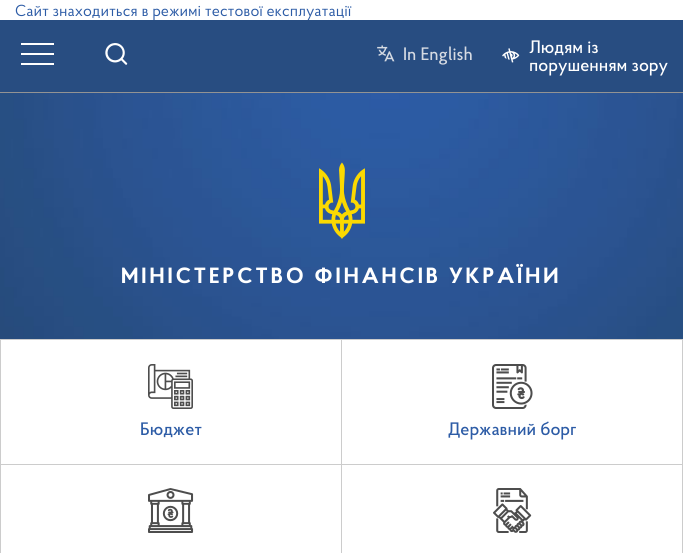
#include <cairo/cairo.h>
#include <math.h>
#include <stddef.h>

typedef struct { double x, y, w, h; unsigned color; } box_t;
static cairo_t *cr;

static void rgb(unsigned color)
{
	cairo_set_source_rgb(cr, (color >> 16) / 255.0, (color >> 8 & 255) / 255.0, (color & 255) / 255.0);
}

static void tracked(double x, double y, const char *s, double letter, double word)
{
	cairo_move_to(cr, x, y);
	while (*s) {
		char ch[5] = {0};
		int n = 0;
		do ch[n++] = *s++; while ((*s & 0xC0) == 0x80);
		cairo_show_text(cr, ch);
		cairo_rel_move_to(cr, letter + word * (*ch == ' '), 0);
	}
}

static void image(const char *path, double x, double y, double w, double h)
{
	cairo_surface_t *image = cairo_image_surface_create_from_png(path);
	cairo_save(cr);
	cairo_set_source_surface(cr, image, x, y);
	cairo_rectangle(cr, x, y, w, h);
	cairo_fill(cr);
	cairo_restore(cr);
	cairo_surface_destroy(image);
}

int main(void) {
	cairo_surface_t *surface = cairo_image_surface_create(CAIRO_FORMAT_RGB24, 683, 553);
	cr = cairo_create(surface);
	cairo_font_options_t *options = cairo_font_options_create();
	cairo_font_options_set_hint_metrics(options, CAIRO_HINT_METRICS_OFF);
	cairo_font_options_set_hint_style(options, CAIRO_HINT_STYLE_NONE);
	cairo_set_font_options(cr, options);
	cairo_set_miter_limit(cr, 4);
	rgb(0xffffff);
	cairo_paint(cr);
	image("img/1.png", 0, 93, 683, 246);
	{
		static const box_t items[] = {
			{0, 20, 683, 72, 0x284d81},
			{0, 92, 683, 1, 0x939393},
			{21, 53, 33, 2, 0xffffff},
			{21, 43, 33, 2, 0xffffff},
			{21, 63, 33, 2, 0xffffff},
		};
		for (size_t i = 0; i < sizeof items / sizeof *items; i++) {
			rgb(items[i].color);
			cairo_rectangle(cr, items[i].x, items[i].y, items[i].w, items[i].h);
			cairo_fill(cr);
		}
	}
	image("img/2.png", 105, 43, 23, 22);
	image("img/3.png", 377, 45, 18, 17);
	image("img/4.png", 502, 48, 18, 15);
	image("img/5.png", 319, 162, 46, 77);
	{
		static const box_t items[] = {
			{0, 339, 683, 1, 0xcccccc},
			{682, 339, 1, 214, 0xcccccc},
			{0, 464, 682, 1, 0xcccccc},
			{0, 340, 1, 213, 0xcccccc},
		};
		for (size_t i = 0; i < sizeof items / sizeof *items; i++) {
			rgb(items[i].color);
			cairo_rectangle(cr, items[i].x, items[i].y, items[i].w, items[i].h);
			cairo_fill(cr);
		}
	}
	image("img/6.png", 148, 364, 45, 45);
	cairo_rectangle(cr, 341, 340, 1, 213);
	cairo_fill(cr);
	image("img/7.png", 492, 364, 41, 45);
	image("img/8.png", 148, 488, 46, 45);
	image("img/9.png", 493, 488, 39, 45);
	cairo_select_font_face(cr, "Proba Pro", CAIRO_FONT_SLANT_NORMAL, CAIRO_FONT_WEIGHT_NORMAL);
	cairo_set_font_size(cr, 16);
	rgb(0x2d5ca6);
	cairo_move_to(cr, 15, 16);
	cairo_show_text(cr, "Сайт знаходиться в режимі тестової експлуатації");
	cairo_select_font_face(cr, "Proba Pro Medium", CAIRO_FONT_SLANT_NORMAL, CAIRO_FONT_WEIGHT_NORMAL);
	cairo_set_font_size(cr, 18);
	rgb(0xd5dae2);
	cairo_move_to(cr, 403, 60);
	cairo_show_text(cr, "In English");
	rgb(0xffffff);
	cairo_move_to(cr, 529, 53);
	cairo_show_text(cr, "Людям із");
	cairo_move_to(cr, 529, 71);
	cairo_show_text(cr, "порушенням зору");
	cairo_select_font_face(cr, "Proba Pro", CAIRO_FONT_SLANT_NORMAL, CAIRO_FONT_WEIGHT_BOLD);
	cairo_set_font_size(cr, 22);
	tracked(121, 283, "МІНІСТЕРСТВО ФІНАНСІВ УКРАЇНИ", 3, 0);
	cairo_select_font_face(cr, "Proba Pro Medium", CAIRO_FONT_SLANT_NORMAL, CAIRO_FONT_WEIGHT_NORMAL);
	cairo_set_font_size(cr, 18);
	rgb(0x2d5ca6);
	cairo_move_to(cr, 140, 435);
	cairo_show_text(cr, "Бюджет");
	cairo_move_to(cr, 448, 435);
	cairo_show_text(cr, "Державний борг");
	cairo_surface_write_to_png(surface, "page.png");
	cairo_font_options_destroy(options);
	cairo_destroy(cr);
	cairo_surface_destroy(surface);
	return 0;
}
